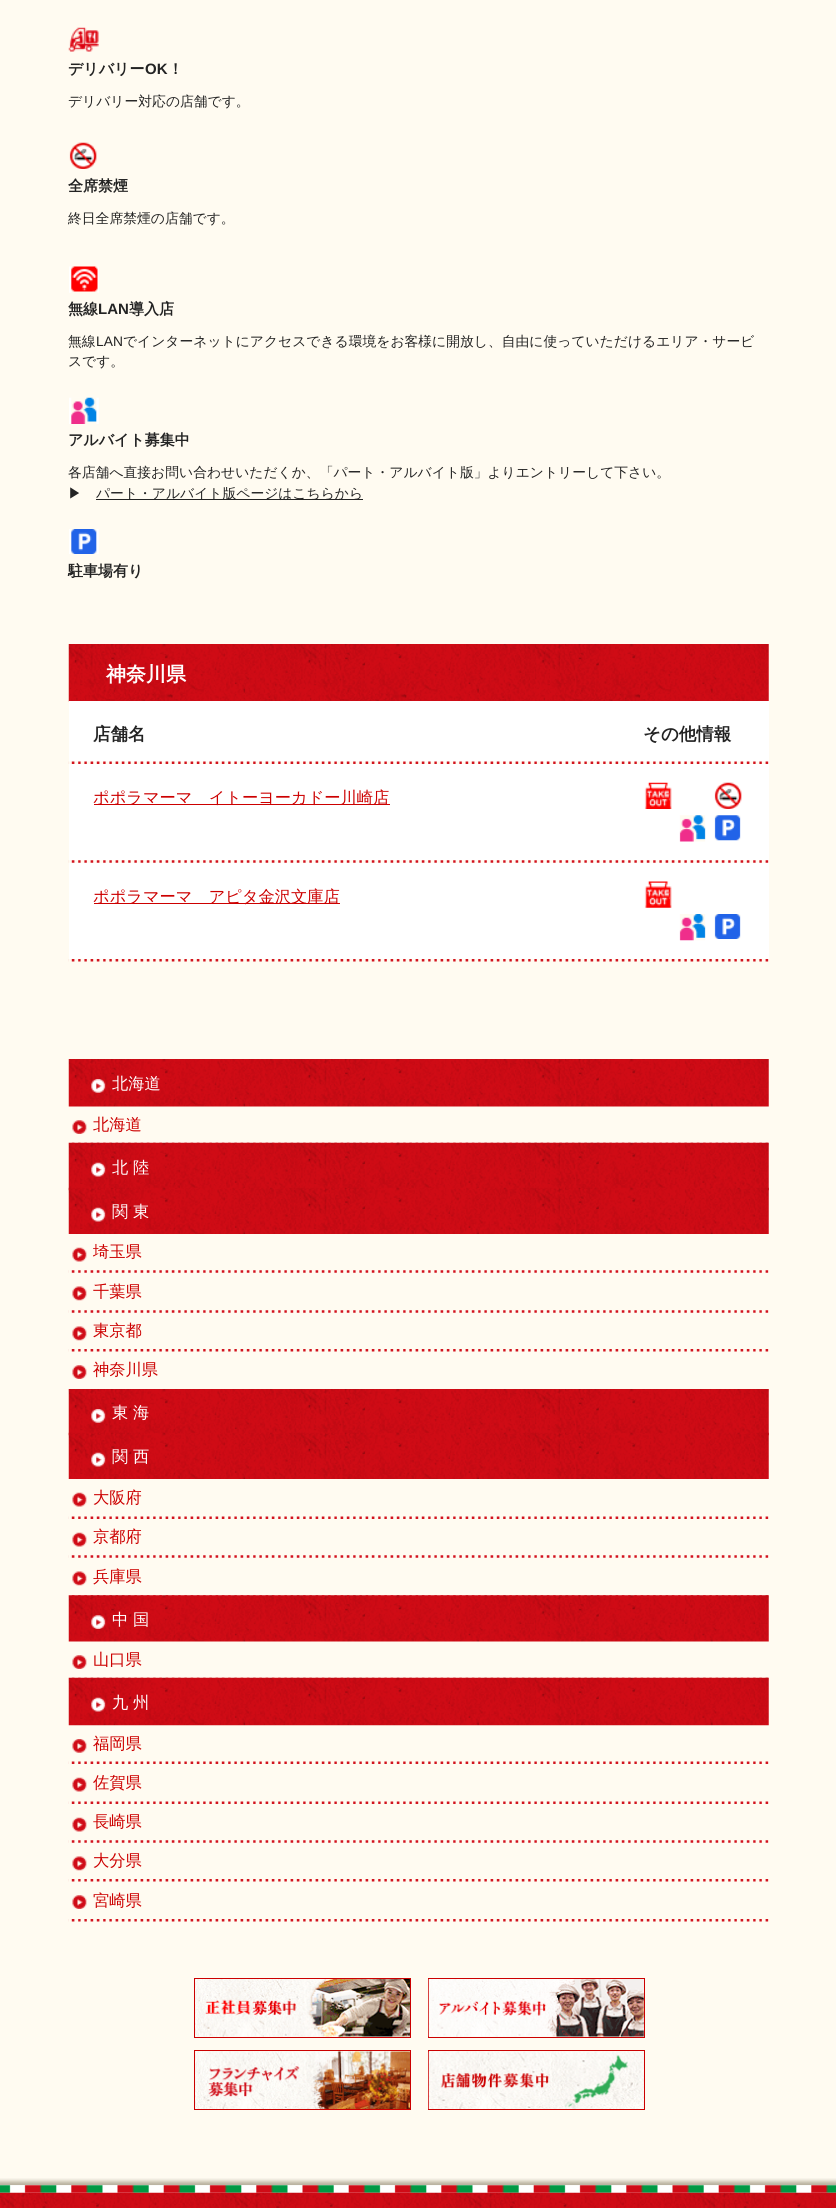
#include <cairo/cairo.h>
#include <math.h>
#include <stddef.h>

typedef struct { double x, y; const char *s; } line_t;
static cairo_t *cr;

static void rgb(unsigned color)
{
	cairo_set_source_rgb(cr, (color >> 16) / 255.0, (color >> 8 & 255) / 255.0, (color & 255) / 255.0);
}

static void image(const char *path, double x, double y, double w, double h)
{
	cairo_surface_t *image = cairo_image_surface_create_from_png(path);
	cairo_save(cr);
	cairo_set_source_surface(cr, image, x, y);
	cairo_rectangle(cr, x, y, w, h);
	cairo_fill(cr);
	cairo_restore(cr);
	cairo_surface_destroy(image);
}

int main(void) {
	cairo_surface_t *surface = cairo_image_surface_create(CAIRO_FORMAT_RGB24, 836, 2208);
	cr = cairo_create(surface);
	cairo_font_options_t *options = cairo_font_options_create();
	cairo_font_options_set_hint_metrics(options, CAIRO_HINT_METRICS_OFF);
	cairo_font_options_set_hint_style(options, CAIRO_HINT_STYLE_NONE);
	cairo_set_font_options(cr, options);
	cairo_set_miter_limit(cr, 4);
	rgb(0xffffff);
	cairo_paint(cr);
	rgb(0xfffbf1);
	cairo_rectangle(cr, 0, 0, 836, 2185);
	cairo_fill(cr);
	image("img/1.png", 0, 2178, 836, 8);
	image("img/2.png", 68, 27, 31, 25);
	image("img/3.png", 69, 142, 28, 27);
	image("img/4.png", 69, 266, 30, 27);
	image("img/5.png", 69, 397, 30, 27);
	rgb(0x232323);
	cairo_rectangle(cr, 96, 499, 267, 1);
	cairo_fill(cr);
	image("img/6.png", 69, 529, 30, 25);
	image("img/7.png", 68, 644, 701, 58);
	rgb(0xffffff);
	cairo_rectangle(cr, 69, 701, 700, 260);
	cairo_fill(cr);
	image("img/8.png", 68, 761, 551, 3);
	image("img/9.png", 618, 761, 151, 3);
	image("img/10.png", 68, 860, 551, 3);
	rgb(0xcc0000);
	cairo_rectangle(cr, 94, 804, 296, 1);
	cairo_fill(cr);
	image("img/11.png", 618, 860, 151, 3);
	image("img/12.png", 644, 782, 28, 27);
	image("img/13.png", 714, 782, 28, 27);
	image("img/14.png", 679, 815, 27, 27);
	image("img/15.png", 714, 815, 27, 26);
	image("img/16.png", 68, 959, 551, 3);
	cairo_rectangle(cr, 94, 903, 246, 1);
	cairo_fill(cr);
	image("img/17.png", 619, 959, 150, 3);
	image("img/18.png", 644, 881, 28, 27);
	image("img/19.png", 679, 914, 27, 27);
	image("img/20.png", 714, 914, 27, 25);
	image("img/21.png", 68, 1059, 701, 48);
	image("img/22.png", 91, 1079, 15, 14);
	image("img/23.png", 68, 1142, 701, 4);
	image("img/24.png", 72, 1120, 15, 14);
	image("img/25.png", 68, 1142, 701, 49);
	image("img/26.png", 91, 1162, 15, 15);
	image("img/27.png", 68, 1187, 701, 47);
	image("img/28.png", 91, 1207, 15, 15);
	image("img/29.png", 68, 1270, 701, 3);
	image("img/30.png", 72, 1247, 15, 15);
	image("img/29.png", 68, 1310, 701, 3);
	image("img/31.png", 72, 1286, 15, 15);
	image("img/32.png", 68, 1349, 701, 3);
	image("img/31.png", 72, 1326, 15, 15);
	image("img/32.png", 68, 1389, 701, 3);
	image("img/24.png", 72, 1365, 15, 14);
	image("img/33.png", 68, 1389, 701, 47);
	image("img/34.png", 91, 1409, 15, 14);
	image("img/35.png", 68, 1432, 701, 47);
	image("img/36.png", 91, 1452, 15, 15);
	image("img/37.png", 68, 1516, 701, 3);
	image("img/30.png", 72, 1492, 15, 15);
	image("img/29.png", 68, 1555, 701, 3);
	image("img/30.png", 72, 1532, 15, 15);
	image("img/29.png", 68, 1595, 701, 3);
	image("img/31.png", 72, 1571, 15, 15);
	image("img/38.png", 68, 1595, 701, 47);
	image("img/39.png", 91, 1615, 15, 14);
	image("img/23.png", 68, 1677, 701, 4);
	image("img/24.png", 72, 1655, 15, 14);
	image("img/40.png", 68, 1677, 701, 49);
	image("img/28.png", 91, 1697, 15, 15);
	image("img/37.png", 68, 1761, 701, 3);
	image("img/41.png", 72, 1739, 15, 14);
	image("img/37.png", 68, 1801, 701, 3);
	image("img/30.png", 72, 1777, 15, 15);
	image("img/29.png", 68, 1840, 701, 3);
	image("img/30.png", 72, 1817, 15, 15);
	image("img/32.png", 68, 1879, 701, 3);
	image("img/31.png", 72, 1856, 15, 15);
	image("img/32.png", 68, 1919, 701, 3);
	image("img/24.png", 72, 1895, 15, 14);
	cairo_rectangle(cr, 194.5, 1978.5, 216, 59);
	cairo_set_line_width(cr, 1);
	cairo_stroke(cr);
	image("img/42.png", 195, 1979, 215, 58);
	cairo_rectangle(cr, 428.5, 1978.5, 216, 59);
	cairo_stroke(cr);
	image("img/43.png", 428, 1979, 216, 58);
	cairo_rectangle(cr, 194.5, 2050.5, 216, 59);
	cairo_stroke(cr);
	image("img/44.png", 195, 2051, 215, 58);
	cairo_rectangle(cr, 428.5, 2050.5, 216, 59);
	cairo_stroke(cr);
	image("img/45.png", 428, 2051, 216, 58);
	image("img/46.png", 0, 2185, 836, 8);
	image("img/47.png", 0, 2192, 836, 16);
	cairo_select_font_face(cr, "WenQuanYi Zen Hei", CAIRO_FONT_SLANT_NORMAL, CAIRO_FONT_WEIGHT_BOLD);
	cairo_set_font_size(cr, 15);
	rgb(0x232323);
	cairo_move_to(cr, 68, 74);
	cairo_show_text(cr, "デリバリー");
	cairo_select_font_face(cr, "Liberation Sans", CAIRO_FONT_SLANT_NORMAL, CAIRO_FONT_WEIGHT_BOLD);
	cairo_move_to(cr, 145, 74);
	cairo_show_text(cr, "OK");
	cairo_select_font_face(cr, "WenQuanYi Zen Hei", CAIRO_FONT_SLANT_NORMAL, CAIRO_FONT_WEIGHT_BOLD);
	cairo_move_to(cr, 168, 74);
	cairo_show_text(cr, "！");
	cairo_select_font_face(cr, "WenQuanYi Zen Hei Medium", CAIRO_FONT_SLANT_NORMAL, CAIRO_FONT_WEIGHT_NORMAL);
	cairo_set_font_size(cr, 13.8);
	cairo_move_to(cr, 68, 106);
	cairo_show_text(cr, "デリバリー対応の店舗です。");
	cairo_select_font_face(cr, "WenQuanYi Zen Hei", CAIRO_FONT_SLANT_NORMAL, CAIRO_FONT_WEIGHT_BOLD);
	cairo_set_font_size(cr, 15);
	cairo_move_to(cr, 68, 191);
	cairo_show_text(cr, "全席禁煙");
	cairo_select_font_face(cr, "WenQuanYi Zen Hei Medium", CAIRO_FONT_SLANT_NORMAL, CAIRO_FONT_WEIGHT_NORMAL);
	cairo_set_font_size(cr, 13.8);
	cairo_move_to(cr, 68, 223);
	cairo_show_text(cr, "終日全席禁煙の店舗です。");
	cairo_select_font_face(cr, "WenQuanYi Zen Hei", CAIRO_FONT_SLANT_NORMAL, CAIRO_FONT_WEIGHT_BOLD);
	cairo_set_font_size(cr, 15);
	cairo_move_to(cr, 68, 314);
	cairo_show_text(cr, "無線");
	cairo_select_font_face(cr, "Liberation Sans", CAIRO_FONT_SLANT_NORMAL, CAIRO_FONT_WEIGHT_BOLD);
	cairo_move_to(cr, 98, 314);
	cairo_show_text(cr, "LAN");
	cairo_select_font_face(cr, "WenQuanYi Zen Hei", CAIRO_FONT_SLANT_NORMAL, CAIRO_FONT_WEIGHT_BOLD);
	cairo_move_to(cr, 129, 314);
	cairo_show_text(cr, "導入店");
	cairo_select_font_face(cr, "WenQuanYi Zen Hei Medium", CAIRO_FONT_SLANT_NORMAL, CAIRO_FONT_WEIGHT_NORMAL);
	cairo_set_font_size(cr, 13.8);
	cairo_move_to(cr, 68, 346);
	cairo_show_text(cr, "無線");
	cairo_select_font_face(cr, "Liberation Sans", CAIRO_FONT_SLANT_NORMAL, CAIRO_FONT_WEIGHT_NORMAL);
	cairo_move_to(cr, 96, 346);
	cairo_show_text(cr, "LAN");
	cairo_select_font_face(cr, "WenQuanYi Zen Hei Medium", CAIRO_FONT_SLANT_NORMAL, CAIRO_FONT_WEIGHT_NORMAL);
	cairo_move_to(cr, 123, 346);
	cairo_show_text(cr, "でインターネットにアクセスできる環境をお客様に開放し、自由に使っていただけるエリア・サービ");
	cairo_move_to(cr, 68, 366);
	cairo_show_text(cr, "スです。");
	cairo_select_font_face(cr, "WenQuanYi Zen Hei", CAIRO_FONT_SLANT_NORMAL, CAIRO_FONT_WEIGHT_BOLD);
	cairo_set_font_size(cr, 15);
	cairo_move_to(cr, 68, 445);
	cairo_show_text(cr, "アルバイト募集中");
	cairo_select_font_face(cr, "WenQuanYi Zen Hei Medium", CAIRO_FONT_SLANT_NORMAL, CAIRO_FONT_WEIGHT_NORMAL);
	cairo_set_font_size(cr, 13.8);
	{
		static const line_t items[] = {
			{68, 477, "各店舗へ直接お問い合わせいただくか、「パート・アルバイト版」よりエントリーして下さい。"},
			{68, 498, "▶"},
			{96, 498, "パート・アルバイト版ページはこちらから"},
		};
		for (size_t i = 0; i < sizeof items / sizeof *items; i++) {
			cairo_move_to(cr, items[i].x, items[i].y);
			cairo_show_text(cr, items[i].s);
		}
	}
	cairo_select_font_face(cr, "WenQuanYi Zen Hei", CAIRO_FONT_SLANT_NORMAL, CAIRO_FONT_WEIGHT_BOLD);
	cairo_set_font_size(cr, 15);
	cairo_move_to(cr, 68, 576);
	cairo_show_text(cr, "駐車場有り");
	cairo_set_font_size(cr, 20);
	rgb(0xffffff);
	cairo_move_to(cr, 106, 681);
	cairo_show_text(cr, "神奈川県");
	cairo_set_font_size(cr, 17.5);
	rgb(0x232323);
	cairo_move_to(cr, 93, 740);
	cairo_show_text(cr, "店舗名");
	cairo_move_to(cr, 643, 740);
	cairo_show_text(cr, "その他情報");
	cairo_select_font_face(cr, "WenQuanYi Zen Hei Medium", CAIRO_FONT_SLANT_NORMAL, CAIRO_FONT_WEIGHT_NORMAL);
	cairo_set_font_size(cr, 16.25);
	rgb(0xcc0000);
	cairo_move_to(cr, 93, 803);
	cairo_show_text(cr, "ポポラマーマ　イトーヨーカドー川崎店");
	cairo_move_to(cr, 93, 902);
	cairo_show_text(cr, "ポポラマーマ　アピタ金沢文庫店");
	rgb(0xffffff);
	cairo_move_to(cr, 112, 1089);
	cairo_show_text(cr, "北海道");
	rgb(0xcc0000);
	cairo_move_to(cr, 93, 1130);
	cairo_show_text(cr, "北海道");
	rgb(0xffffff);
	cairo_move_to(cr, 112, 1173);
	cairo_show_text(cr, "北 陸");
	cairo_move_to(cr, 112, 1217);
	cairo_show_text(cr, "関 東");
	rgb(0xcc0000);
	{
		static const line_t items[] = {
			{93, 1257, "埼玉県"},
			{93, 1297, "千葉県"},
			{93, 1336, "東京都"},
			{93, 1375, "神奈川県"},
		};
		for (size_t i = 0; i < sizeof items / sizeof *items; i++) {
			cairo_move_to(cr, items[i].x, items[i].y);
			cairo_show_text(cr, items[i].s);
		}
	}
	rgb(0xffffff);
	cairo_move_to(cr, 112, 1418);
	cairo_show_text(cr, "東 海");
	cairo_move_to(cr, 112, 1462);
	cairo_show_text(cr, "関 西");
	rgb(0xcc0000);
	{
		static const line_t items[] = {
			{93, 1503, "大阪府"},
			{93, 1542, "京都府"},
			{93, 1582, "兵庫県"},
		};
		for (size_t i = 0; i < sizeof items / sizeof *items; i++) {
			cairo_move_to(cr, items[i].x, items[i].y);
			cairo_show_text(cr, items[i].s);
		}
	}
	rgb(0xffffff);
	cairo_move_to(cr, 112, 1625);
	cairo_show_text(cr, "中 国");
	rgb(0xcc0000);
	cairo_move_to(cr, 93, 1665);
	cairo_show_text(cr, "山口県");
	rgb(0xffffff);
	cairo_move_to(cr, 112, 1708);
	cairo_show_text(cr, "九 州");
	rgb(0xcc0000);
	{
		static const line_t items[] = {
			{93, 1749, "福岡県"},
			{93, 1788, "佐賀県"},
			{93, 1827, "長崎県"},
			{93, 1866, "大分県"},
			{93, 1906, "宮崎県"},
		};
		for (size_t i = 0; i < sizeof items / sizeof *items; i++) {
			cairo_move_to(cr, items[i].x, items[i].y);
			cairo_show_text(cr, items[i].s);
		}
	}
	cairo_surface_write_to_png(surface, "page.png");
	cairo_font_options_destroy(options);
	cairo_destroy(cr);
	cairo_surface_destroy(surface);
	return 0;
}
